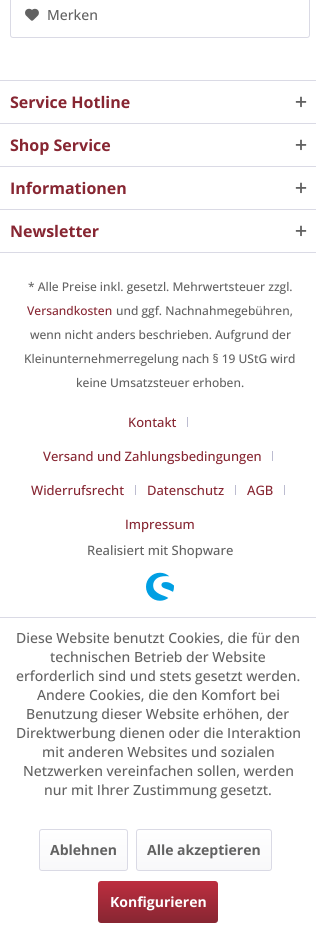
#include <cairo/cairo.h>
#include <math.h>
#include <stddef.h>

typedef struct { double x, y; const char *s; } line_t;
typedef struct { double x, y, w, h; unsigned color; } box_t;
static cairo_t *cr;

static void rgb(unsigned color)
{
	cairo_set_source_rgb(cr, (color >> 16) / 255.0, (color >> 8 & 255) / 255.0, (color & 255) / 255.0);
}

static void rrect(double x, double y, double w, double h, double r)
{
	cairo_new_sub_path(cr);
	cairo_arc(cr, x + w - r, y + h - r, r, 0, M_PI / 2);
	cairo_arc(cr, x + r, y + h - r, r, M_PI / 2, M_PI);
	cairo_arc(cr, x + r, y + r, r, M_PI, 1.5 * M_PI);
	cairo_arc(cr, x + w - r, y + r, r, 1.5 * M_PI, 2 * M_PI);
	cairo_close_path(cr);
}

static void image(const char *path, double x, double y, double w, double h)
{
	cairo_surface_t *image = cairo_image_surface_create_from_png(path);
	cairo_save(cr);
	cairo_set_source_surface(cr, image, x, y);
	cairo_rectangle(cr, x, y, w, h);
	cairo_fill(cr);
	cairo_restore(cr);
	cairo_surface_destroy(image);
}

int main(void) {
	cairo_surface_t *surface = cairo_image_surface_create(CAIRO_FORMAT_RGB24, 316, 933);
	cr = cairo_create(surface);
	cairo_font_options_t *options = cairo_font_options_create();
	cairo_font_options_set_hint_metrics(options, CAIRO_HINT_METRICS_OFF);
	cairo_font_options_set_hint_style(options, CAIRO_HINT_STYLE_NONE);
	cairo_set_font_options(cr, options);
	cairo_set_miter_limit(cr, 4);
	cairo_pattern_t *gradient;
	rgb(0xffffff);
	cairo_paint(cr);
	rrect(10.5, -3.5, 299, 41, 2.5);
	rgb(0xdadae5);
	cairo_set_line_width(cr, 1);
	cairo_stroke(cr);
	image("img/1.png", 25, 8, 14, 13);
	cairo_rectangle(cr, 0, 80, 316, 1);
	cairo_fill(cr);
	image("img/2.png", 295, 96, 12, 12);
	cairo_rectangle(cr, 0, 123, 316, 1);
	cairo_fill(cr);
	image("img/2.png", 295, 139, 12, 12);
	cairo_rectangle(cr, 0, 166, 316, 1);
	cairo_fill(cr);
	image("img/2.png", 295, 182, 12, 12);
	cairo_rectangle(cr, 0, 209, 316, 1);
	cairo_fill(cr);
	cairo_rectangle(cr, 0, 252, 316, 1);
	cairo_fill(cr);
	image("img/2.png", 295, 225, 12, 12);
	{
		static const box_t items[] = {
			{187, 417, 1, 10, 0xbcbcd0},
			{272, 451, 1, 10, 0xbcbcd0},
			{135, 485, 1, 10, 0xbcbcd0},
			{235, 485, 1, 10, 0xbcbcd0},
			{284, 485, 1, 10, 0xbcbcd0},
		};
		for (size_t i = 0; i < sizeof items / sizeof *items; i++) {
			rgb(items[i].color);
			cairo_rectangle(cr, items[i].x, items[i].y, items[i].w, items[i].h);
			cairo_fill(cr);
		}
	}
	image("img/3.png", 146, 572, 28, 29);
	rgb(0xdadae5);
	cairo_rectangle(cr, 0, 617, 316, 1);
	cairo_fill(cr);
	gradient = cairo_pattern_create_linear(84, 830, 84, 870);
	cairo_pattern_add_color_stop_rgba(gradient, 0, 1, 1, 1, 1);
	cairo_pattern_add_color_stop_rgba(gradient, 1, 0.973, 0.973, 0.98, 1);
	cairo_set_source(cr, gradient);
	cairo_pattern_destroy(gradient);
	rrect(40, 830, 87, 40, 2);
	cairo_fill(cr);
	rrect(39.5, 829.5, 88, 41, 2.5);
	rgb(0xdadae5);
	cairo_stroke(cr);
	gradient = cairo_pattern_create_linear(204, 830, 204, 870);
	cairo_pattern_add_color_stop_rgba(gradient, 0, 1, 1, 1, 1);
	cairo_pattern_add_color_stop_rgba(gradient, 1, 0.973, 0.973, 0.98, 1);
	cairo_set_source(cr, gradient);
	cairo_pattern_destroy(gradient);
	rrect(137, 830, 134, 40, 2);
	cairo_fill(cr);
	rrect(136.5, 829.5, 135, 41, 2.5);
	rgb(0xdadae5);
	cairo_stroke(cr);
	gradient = cairo_pattern_create_linear(158, 881, 158, 923);
	cairo_pattern_add_color_stop_rgba(gradient, 0, 0.741, 0.18, 0.247, 1);
	cairo_pattern_add_color_stop_rgba(gradient, 1, 0.529, 0.149, 0.196, 1);
	cairo_set_source(cr, gradient);
	cairo_pattern_destroy(gradient);
	rrect(98, 881, 120, 42, 3);
	cairo_fill(cr);
	cairo_select_font_face(cr, "Open Sans Medium", CAIRO_FONT_SLANT_NORMAL, CAIRO_FONT_WEIGHT_NORMAL);
	cairo_set_font_size(cr, 14);
	rgb(0x626262);
	cairo_move_to(cr, 47, 20);
	cairo_show_text(cr, "Merken");
	cairo_select_font_face(cr, "Open Sans", CAIRO_FONT_SLANT_NORMAL, CAIRO_FONT_WEIGHT_BOLD);
	cairo_set_font_size(cr, 16);
	rgb(0x872632);
	{
		static const line_t items[] = {
			{10, 108, "Service Hotline"},
			{10, 151, "Shop Service"},
			{10, 194, "Informationen"},
			{10, 237, "Newsletter"},
		};
		for (size_t i = 0; i < sizeof items / sizeof *items; i++) {
			cairo_move_to(cr, items[i].x, items[i].y);
			cairo_show_text(cr, items[i].s);
		}
	}
	cairo_select_font_face(cr, "Open Sans Medium", CAIRO_FONT_SLANT_NORMAL, CAIRO_FONT_WEIGHT_NORMAL);
	cairo_set_font_size(cr, 12);
	rgb(0x626262);
	cairo_move_to(cr, 28, 291);
	cairo_show_text(cr, "* Alle Preise inkl. gesetzl. Mehrwertsteuer zzgl.");
	rgb(0x872632);
	cairo_move_to(cr, 27, 315);
	cairo_show_text(cr, "Versandkosten");
	rgb(0x626262);
	{
		static const line_t items[] = {
			{116, 315, "und ggf. Nachnahmegebühren,"},
			{30, 339, "wenn nicht anders beschrieben. Aufgrund der"},
			{24, 363, "Kleinunternehmerregelung nach § 19 UStG wird"},
			{76, 387, "keine Umsatzsteuer erhoben."},
		};
		for (size_t i = 0; i < sizeof items / sizeof *items; i++) {
			cairo_move_to(cr, items[i].x, items[i].y);
			cairo_show_text(cr, items[i].s);
		}
	}
	cairo_set_font_size(cr, 13);
	rgb(0x872632);
	{
		static const line_t items[] = {
			{128, 427, "Kontakt"},
			{43, 461, "Versand und Zahlungsbedingungen"},
			{31, 495, "Widerrufsrecht"},
			{147, 495, "Datenschutz"},
			{247, 495, "AGB"},
			{125, 529, "Impressum"},
		};
		for (size_t i = 0; i < sizeof items / sizeof *items; i++) {
			cairo_move_to(cr, items[i].x, items[i].y);
			cairo_show_text(cr, items[i].s);
		}
	}
	rgb(0x626262);
	cairo_move_to(cr, 87, 555);
	cairo_show_text(cr, "Realisiert mit Shopware");
	cairo_set_font_size(cr, 14);
	{
		static const line_t items[] = {
			{16, 643, "Diese Website benutzt Cookies, die für den"},
			{50, 662, "technischen Betrieb der Website"},
			{16, 681, "erforderlich sind und stets gesetzt werden."},
			{37, 700, "Andere Cookies, die den Komfort bei"},
			{26, 719, "Benutzung dieser Website erhöhen, der"},
			{16, 738, "Direktwerbung dienen oder die Interaktion"},
			{42, 757, "mit anderen Websites und sozialen"},
			{23, 776, "Netzwerken vereinfachen sollen, werden"},
			{44, 795, "nur mit Ihrer Zustimmung gesetzt."},
		};
		for (size_t i = 0; i < sizeof items / sizeof *items; i++) {
			cairo_move_to(cr, items[i].x, items[i].y);
			cairo_show_text(cr, items[i].s);
		}
	}
	cairo_select_font_face(cr, "Open Sans", CAIRO_FONT_SLANT_NORMAL, CAIRO_FONT_WEIGHT_BOLD);
	cairo_move_to(cr, 50, 855);
	cairo_show_text(cr, "Ablehnen");
	cairo_move_to(cr, 147, 855);
	cairo_show_text(cr, "Alle akzeptieren");
	rgb(0xffffff);
	cairo_move_to(cr, 110, 907);
	cairo_show_text(cr, "Konfigurieren");
	cairo_surface_write_to_png(surface, "page.png");
	cairo_font_options_destroy(options);
	cairo_destroy(cr);
	cairo_surface_destroy(surface);
	return 0;
}
